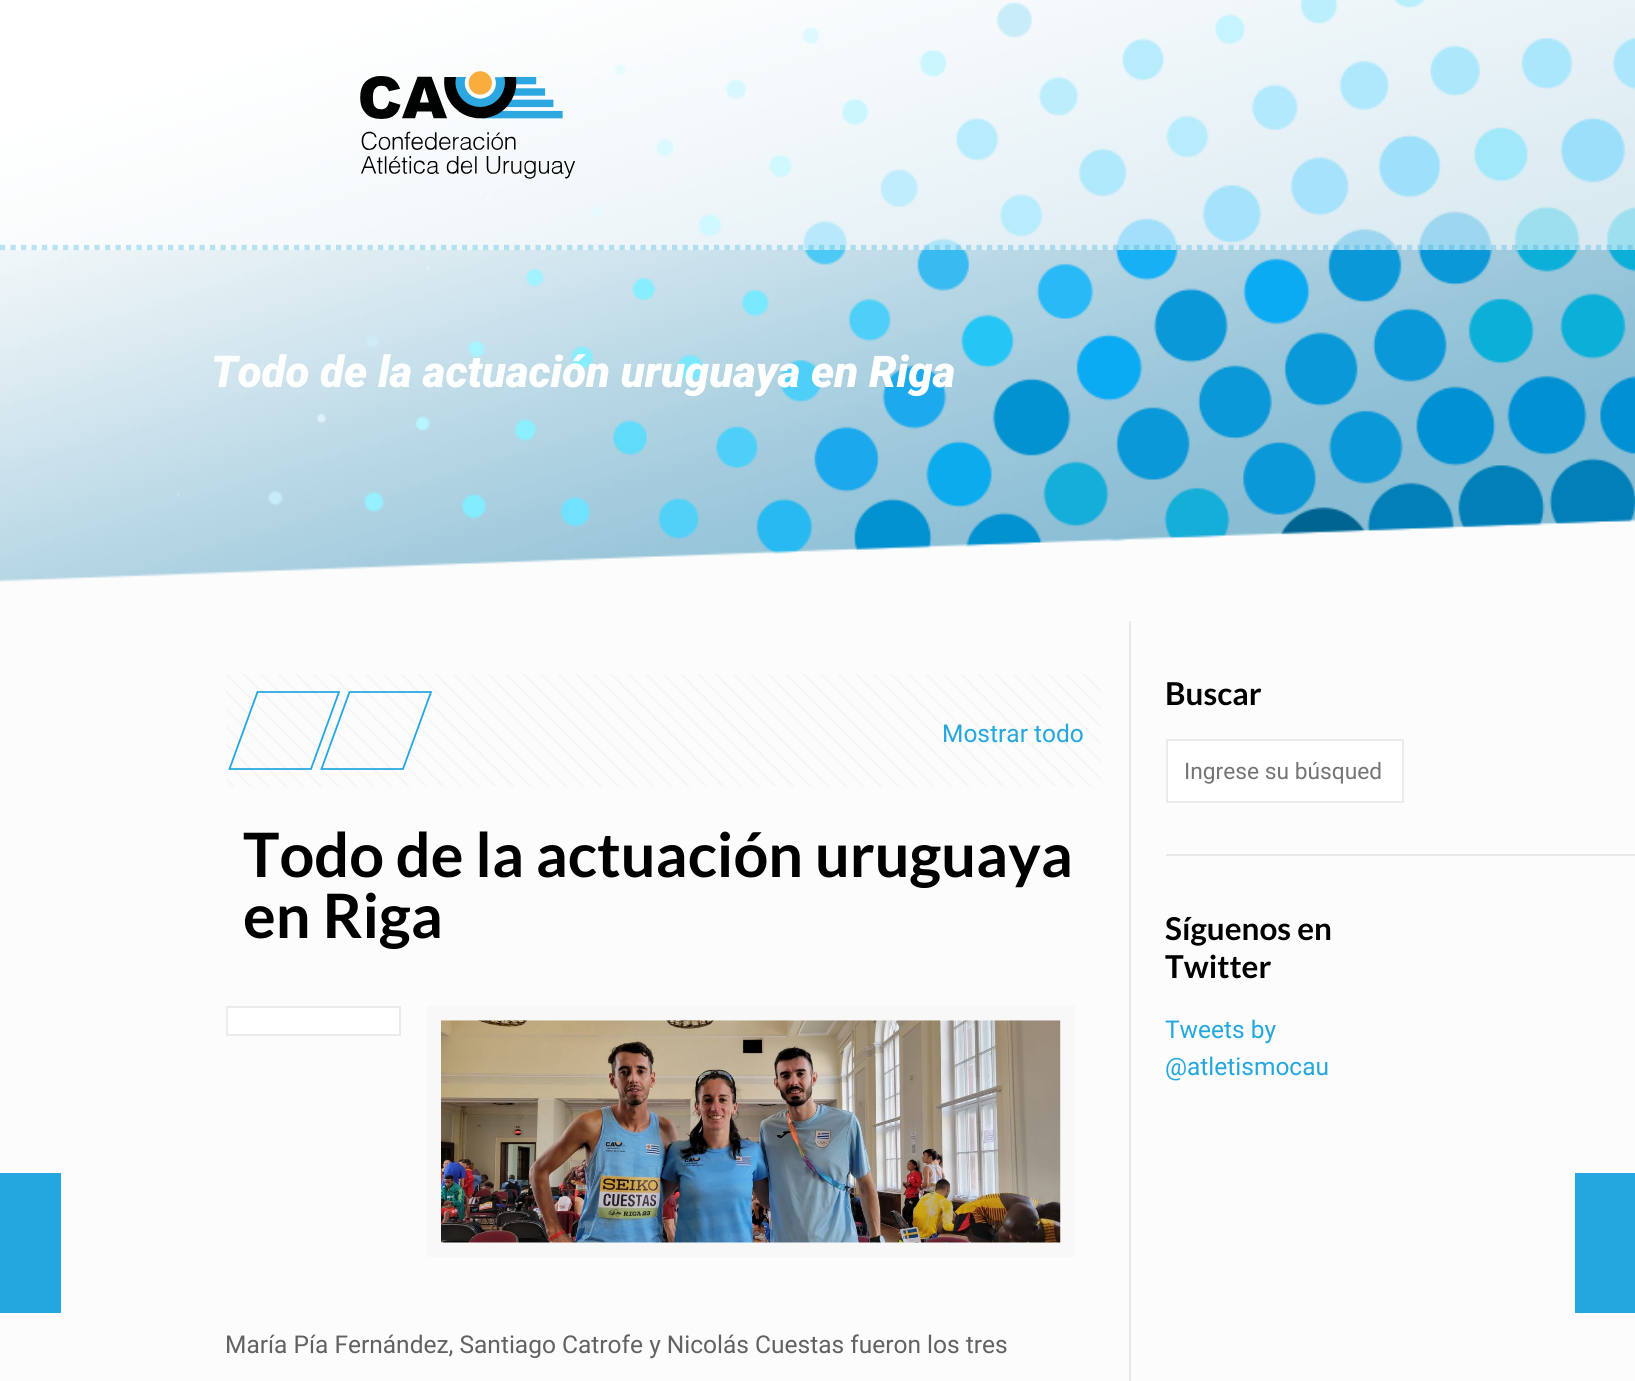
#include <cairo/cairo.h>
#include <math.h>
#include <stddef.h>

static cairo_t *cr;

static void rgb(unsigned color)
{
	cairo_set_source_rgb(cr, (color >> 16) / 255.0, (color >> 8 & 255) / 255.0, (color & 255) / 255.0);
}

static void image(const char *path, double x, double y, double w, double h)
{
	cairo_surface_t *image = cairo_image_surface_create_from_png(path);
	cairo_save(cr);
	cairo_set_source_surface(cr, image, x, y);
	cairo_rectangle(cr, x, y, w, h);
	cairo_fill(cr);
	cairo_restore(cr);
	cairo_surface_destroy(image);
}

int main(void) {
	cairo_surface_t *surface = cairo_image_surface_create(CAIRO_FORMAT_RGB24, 1635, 1381);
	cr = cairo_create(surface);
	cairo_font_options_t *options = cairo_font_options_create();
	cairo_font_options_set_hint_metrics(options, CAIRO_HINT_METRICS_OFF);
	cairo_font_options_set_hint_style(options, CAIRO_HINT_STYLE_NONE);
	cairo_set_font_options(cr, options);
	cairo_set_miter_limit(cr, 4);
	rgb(0xfcfcfc);
	cairo_paint(cr);
	rgb(0x24a7df);
	cairo_rectangle(cr, 0, 1173, 61, 140);
	cairo_fill(cr);
	image("img/1.png", 0, 0, 1635, 582);
	cairo_set_source_rgba(cr, 1, 1, 1, 0.6);
	cairo_rectangle(cr, 0, 0, 1635, 250);
	cairo_fill(cr);
	cairo_new_path(cr);
	cairo_move_to(cr, 0, 247.5);
	cairo_line_to(cr, 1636, 247.5);
	cairo_set_source_rgba(cr, 0.141, 0.655, 0.875, 0.3);
	cairo_set_line_width(cr, 5.2);
	cairo_set_dash(cr, (double[]){5.25, 5.25}, 2, 0);
	cairo_stroke(cr);
	image("img/2.png", 360, 71, 215, 108);
	image("img/3.png", 226, 674, 875, 113);
	cairo_new_path(cr);
	cairo_move_to(cr, 257.5, 692);
	cairo_line_to(cr, 339, 692);
	cairo_line_to(cr, 311, 769);
	cairo_line_to(cr, 229.5, 769);
	cairo_close_path(cr);
	rgb(0x24a7df);
	cairo_set_line_width(cr, 1.8);
	cairo_set_dash(cr, NULL, 0, 0);
	cairo_stroke(cr);
	cairo_new_path(cr);
	cairo_move_to(cr, 349.5, 692);
	cairo_line_to(cr, 431, 692);
	cairo_line_to(cr, 403, 769);
	cairo_line_to(cr, 321.5, 769);
	cairo_close_path(cr);
	cairo_stroke(cr);
	rgb(0xffffff);
	cairo_rectangle(cr, 227, 1007, 173, 28);
	cairo_fill_preserve(cr);
	rgb(0xebebeb);
	cairo_set_line_width(cr, 2);
	cairo_stroke(cr);
	cairo_rectangle(cr, 434, 1013, 634, 237);
	rgb(0xf8f8f8);
	cairo_set_line_width(cr, 14);
	cairo_stroke(cr);
	image("img/4.png", 441, 1020, 620, 223);
	rgb(0xe8e8e8);
	cairo_rectangle(cr, 1129, 621, 2, 760);
	cairo_fill(cr);
	rgb(0xffffff);
	cairo_rectangle(cr, 1167, 740, 236, 62);
	cairo_fill_preserve(cr);
	rgb(0xebebeb);
	cairo_set_line_width(cr, 2);
	cairo_stroke(cr);
	rgb(0xe8e8e8);
	cairo_rectangle(cr, 1166, 854, 469, 2);
	cairo_fill(cr);
	rgb(0x24a7df);
	cairo_rectangle(cr, 1575, 1173, 60, 140);
	cairo_fill(cr);
	cairo_select_font_face(cr, "Roboto Black", CAIRO_FONT_SLANT_ITALIC, CAIRO_FONT_WEIGHT_NORMAL);
	cairo_set_font_size(cr, 43.75);
	rgb(0xffffff);
	cairo_move_to(cr, 211, 387);
	cairo_show_text(cr, "Todo de la actuación uruguaya en Riga");
	cairo_select_font_face(cr, "Roboto", CAIRO_FONT_SLANT_NORMAL, CAIRO_FONT_WEIGHT_NORMAL);
	cairo_set_font_size(cr, 24.5);
	rgb(0x24a7df);
	cairo_move_to(cr, 942, 742);
	cairo_show_text(cr, "Mostrar todo");
	cairo_select_font_face(cr, "Lato", CAIRO_FONT_SLANT_NORMAL, CAIRO_FONT_WEIGHT_BOLD);
	cairo_set_font_size(cr, 61.25);
	rgb(0x000000);
	cairo_move_to(cr, 243, 877);
	cairo_show_text(cr, "Todo de la actuación uruguaya");
	cairo_move_to(cr, 243, 938);
	cairo_show_text(cr, "en Riga");
	cairo_select_font_face(cr, "Roboto", CAIRO_FONT_SLANT_NORMAL, CAIRO_FONT_WEIGHT_NORMAL);
	cairo_set_font_size(cr, 24.5);
	rgb(0x626262);
	cairo_move_to(cr, 225, 1353);
	cairo_show_text(cr, "María Pía Fernández, Santiago Catrofe y Nicolás Cuestas fueron los tres");
	cairo_select_font_face(cr, "Lato", CAIRO_FONT_SLANT_NORMAL, CAIRO_FONT_WEIGHT_BOLD);
	cairo_set_font_size(cr, 31.5);
	rgb(0x000000);
	cairo_move_to(cr, 1165, 705);
	cairo_show_text(cr, "Buscar");
	cairo_select_font_face(cr, "Roboto", CAIRO_FONT_SLANT_NORMAL, CAIRO_FONT_WEIGHT_NORMAL);
	cairo_set_font_size(cr, 22.75);
	rgb(0x757575);
	cairo_move_to(cr, 1184, 779);
	cairo_show_text(cr, "Ingrese su búsqued");
	cairo_select_font_face(cr, "Lato", CAIRO_FONT_SLANT_NORMAL, CAIRO_FONT_WEIGHT_BOLD);
	cairo_set_font_size(cr, 31.5);
	rgb(0x000000);
	cairo_move_to(cr, 1165, 940);
	cairo_show_text(cr, "Síguenos en");
	cairo_move_to(cr, 1165, 978);
	cairo_show_text(cr, "Twitter");
	cairo_select_font_face(cr, "Roboto", CAIRO_FONT_SLANT_NORMAL, CAIRO_FONT_WEIGHT_NORMAL);
	cairo_set_font_size(cr, 24.5);
	rgb(0x24a7df);
	cairo_move_to(cr, 1165, 1038);
	cairo_show_text(cr, "Tweets by");
	cairo_move_to(cr, 1165, 1075);
	cairo_show_text(cr, "@atletismocau");
	cairo_surface_write_to_png(surface, "page.png");
	cairo_font_options_destroy(options);
	cairo_destroy(cr);
	cairo_surface_destroy(surface);
	return 0;
}
